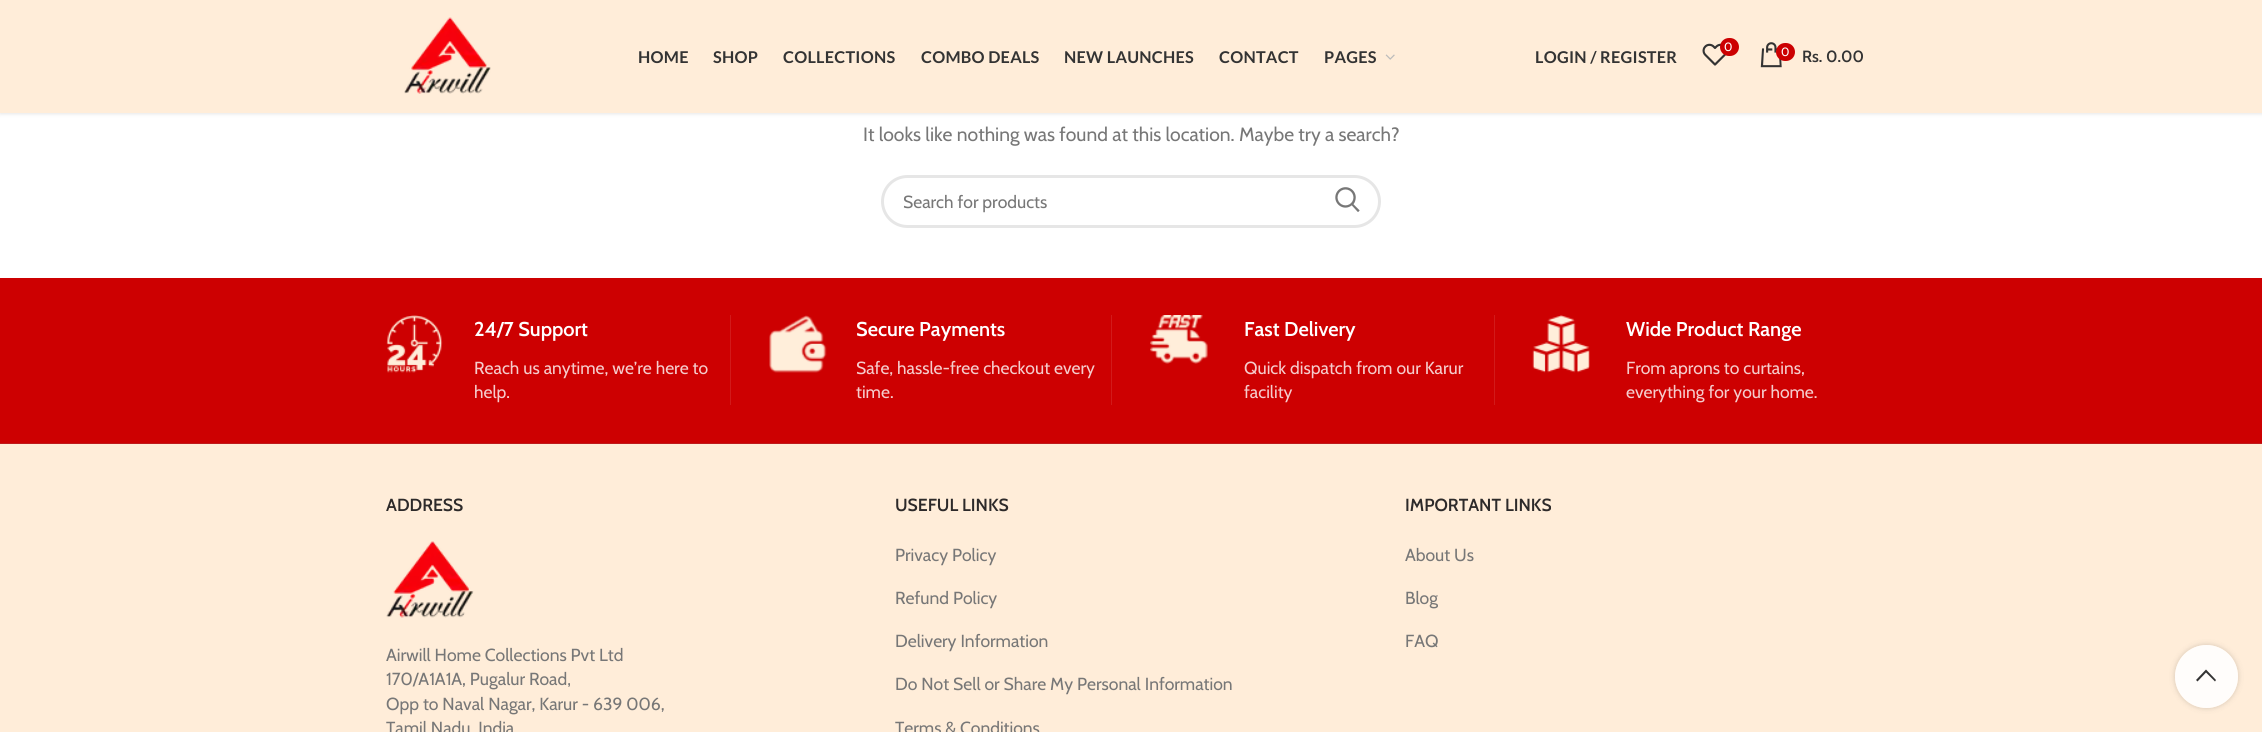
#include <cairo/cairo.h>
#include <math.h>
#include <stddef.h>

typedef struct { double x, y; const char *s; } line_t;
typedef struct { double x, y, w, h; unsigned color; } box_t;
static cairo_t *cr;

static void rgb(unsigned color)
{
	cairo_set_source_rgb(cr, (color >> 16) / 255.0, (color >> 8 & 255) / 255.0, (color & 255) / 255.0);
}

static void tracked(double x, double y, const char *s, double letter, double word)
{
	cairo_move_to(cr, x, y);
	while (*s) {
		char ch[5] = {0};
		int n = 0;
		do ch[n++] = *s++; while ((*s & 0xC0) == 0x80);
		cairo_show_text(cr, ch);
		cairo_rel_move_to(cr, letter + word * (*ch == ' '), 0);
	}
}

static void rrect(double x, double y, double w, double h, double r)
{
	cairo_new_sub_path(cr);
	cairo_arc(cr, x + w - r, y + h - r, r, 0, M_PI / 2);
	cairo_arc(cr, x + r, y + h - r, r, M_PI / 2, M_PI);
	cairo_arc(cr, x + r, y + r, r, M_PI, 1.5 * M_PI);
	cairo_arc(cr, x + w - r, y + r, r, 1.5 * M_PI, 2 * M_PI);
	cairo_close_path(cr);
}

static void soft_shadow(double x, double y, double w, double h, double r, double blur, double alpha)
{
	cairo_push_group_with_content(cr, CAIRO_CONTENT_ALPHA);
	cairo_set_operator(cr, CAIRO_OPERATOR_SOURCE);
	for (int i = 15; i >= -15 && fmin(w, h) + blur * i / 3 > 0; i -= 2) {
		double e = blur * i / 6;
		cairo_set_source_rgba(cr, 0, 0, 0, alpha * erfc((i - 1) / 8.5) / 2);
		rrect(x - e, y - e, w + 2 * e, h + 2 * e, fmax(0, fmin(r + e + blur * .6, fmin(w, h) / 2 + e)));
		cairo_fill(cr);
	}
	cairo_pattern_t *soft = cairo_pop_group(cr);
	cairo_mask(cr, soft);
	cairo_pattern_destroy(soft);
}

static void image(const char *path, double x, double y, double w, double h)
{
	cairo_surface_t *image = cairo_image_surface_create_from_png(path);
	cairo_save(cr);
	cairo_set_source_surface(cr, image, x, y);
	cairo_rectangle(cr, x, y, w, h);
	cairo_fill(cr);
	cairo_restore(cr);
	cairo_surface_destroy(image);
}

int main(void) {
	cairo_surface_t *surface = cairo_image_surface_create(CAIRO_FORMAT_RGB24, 2262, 732);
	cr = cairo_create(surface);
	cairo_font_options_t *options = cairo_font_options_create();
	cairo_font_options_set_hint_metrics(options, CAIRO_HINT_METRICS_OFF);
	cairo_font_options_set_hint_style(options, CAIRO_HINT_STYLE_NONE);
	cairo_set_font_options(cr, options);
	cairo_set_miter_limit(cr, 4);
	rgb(0xffffff);
	cairo_paint(cr);
	rgb(0x000000);
	soft_shadow(0, 1, 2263, 113, 0, 2, 0.1);
	rgb(0xffedd9);
	cairo_rectangle(cr, 0, 0, 2262, 113);
	cairo_fill(cr);
	image("img/1.png", 404, 17, 87, 77);
	image("img/2.png", 1385, 54, 10, 6);
	image("img/3.png", 1702, 43, 24, 23);
	rgb(0xcc0001);
	rrect(1720, 38, 19, 18, 9);
	cairo_fill(cr);
	image("img/4.png", 1760, 42, 22, 26);
	rrect(1776, 43, 19, 18, 9);
	cairo_fill(cr);
	rrect(882.5, 176.5, 497, 50, 25);
	rgb(0xe6e6e6);
	cairo_set_line_width(cr, 3);
	cairo_stroke(cr);
	image("img/5.png", 1335, 187, 25, 25);
	{
		static const box_t items[] = {
			{0, 278, 2262, 165, 0xcd0001},
			{0, 443, 2262, 1, 0xbe1a1b},
			{730, 315, 1, 90, 0xd21a1a},
		};
		for (size_t i = 0; i < sizeof items / sizeof *items; i++) {
			rgb(items[i].color);
			cairo_rectangle(cr, items[i].x, items[i].y, items[i].w, items[i].h);
			cairo_fill(cr);
		}
	}
	image("img/6.png", 386, 315, 57, 58);
	cairo_rectangle(cr, 1111, 315, 1, 90);
	cairo_fill(cr);
	image("img/7.png", 769, 315, 58, 58);
	cairo_rectangle(cr, 1494, 315, 1, 90);
	cairo_fill(cr);
	image("img/8.png", 1150, 315, 58, 49);
	image("img/9.png", 1532, 315, 58, 58);
	rgb(0xffedd9);
	cairo_rectangle(cr, 0, 444, 2262, 288);
	cairo_fill(cr);
	image("img/10.png", 386, 541, 88, 77);
	cairo_save(cr);
	cairo_set_fill_rule(cr, CAIRO_FILL_RULE_EVEN_ODD);
	cairo_new_path(cr);
	cairo_move_to(cr, 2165, 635);
	cairo_line_to(cr, 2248, 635);
	cairo_line_to(cr, 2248, 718);
	cairo_line_to(cr, 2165, 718);
	cairo_close_path(cr);
	cairo_move_to(cr, 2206.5, 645);
	cairo_curve_to(cr, 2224, 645, 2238, 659, 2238, 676.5);
	cairo_curve_to(cr, 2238, 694, 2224, 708, 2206.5, 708);
	cairo_curve_to(cr, 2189, 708, 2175, 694, 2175, 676.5);
	cairo_curve_to(cr, 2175, 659, 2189, 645, 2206.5, 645);
	cairo_close_path(cr);
	cairo_clip(cr);
	rgb(0x000000);
	soft_shadow(2175, 645, 63, 63, 31.5, 3, 0.17);
	cairo_restore(cr);
	cairo_set_source_rgba(cr, 1, 1, 1, 0.9);
	cairo_arc(cr, 2206.5, 676.5, 31.5, 0, 2 * M_PI);
	cairo_fill(cr);
	rgb(0x333333);
	cairo_new_path(cr);
	cairo_move_to(cr, 2206, 669.5);
	cairo_line_to(cr, 2216, 680);
	cairo_line_to(cr, 2215, 681.5);
	cairo_line_to(cr, 2206, 672.5);
	cairo_line_to(cr, 2197.5, 681.5);
	cairo_line_to(cr, 2196, 680);
	cairo_close_path(cr);
	cairo_fill(cr);
	cairo_select_font_face(cr, "Lato", CAIRO_FONT_SLANT_NORMAL, CAIRO_FONT_WEIGHT_BOLD);
	cairo_set_font_size(cr, 16.25);
	{
		static const line_t items[] = {
			{638, 63, "HOME"},
			{713, 63, "SHOP"},
			{783, 63, "COLLECTIONS"},
			{921, 63, "COMBO DEALS"},
			{1064, 63, "NEW LAUNCHES"},
			{1219, 63, "CONTACT"},
			{1324, 63, "PAGES"},
			{1535, 63, "LOGIN / REGISTER"},
		};
		for (size_t i = 0; i < sizeof items / sizeof *items; i++) {
			tracked(items[i].x, items[i].y, items[i].s, 0.25, 0);
		}
	}
	cairo_select_font_face(cr, "Cabin", CAIRO_FONT_SLANT_NORMAL, CAIRO_FONT_WEIGHT_NORMAL);
	cairo_set_font_size(cr, 12);
	rgb(0xffffff);
	cairo_move_to(cr, 1724, 51);
	cairo_show_text(cr, "0");
	cairo_move_to(cr, 1781, 56);
	cairo_show_text(cr, "0");
	cairo_select_font_face(cr, "Cabin SemiBold", CAIRO_FONT_SLANT_NORMAL, CAIRO_FONT_WEIGHT_NORMAL);
	cairo_set_font_size(cr, 16.25);
	rgb(0x333333);
	cairo_move_to(cr, 1802, 62);
	cairo_show_text(cr, "Rs. 0.00");
	cairo_select_font_face(cr, "Cabin", CAIRO_FONT_SLANT_NORMAL, CAIRO_FONT_WEIGHT_NORMAL);
	cairo_set_font_size(cr, 19.25);
	rgb(0x777777);
	cairo_move_to(cr, 863, 141);
	cairo_show_text(cr, "It looks like nothing was found at this location. Maybe try a search?");
	cairo_set_font_size(cr, 17.5);
	cairo_move_to(cr, 903, 208);
	cairo_show_text(cr, "Search for products");
	cairo_select_font_face(cr, "Cabin SemiBold", CAIRO_FONT_SLANT_NORMAL, CAIRO_FONT_WEIGHT_NORMAL);
	cairo_set_font_size(cr, 20);
	rgb(0xffffff);
	cairo_move_to(cr, 474, 336);
	cairo_show_text(cr, "24/7 Support");
	cairo_select_font_face(cr, "Cabin", CAIRO_FONT_SLANT_NORMAL, CAIRO_FONT_WEIGHT_NORMAL);
	cairo_set_font_size(cr, 17.5);
	rgb(0xf5cccc);
	cairo_move_to(cr, 474, 374);
	cairo_show_text(cr, "Reach us anytime, we’re here to");
	cairo_move_to(cr, 474, 398);
	cairo_show_text(cr, "help.");
	cairo_select_font_face(cr, "Cabin SemiBold", CAIRO_FONT_SLANT_NORMAL, CAIRO_FONT_WEIGHT_NORMAL);
	cairo_set_font_size(cr, 20);
	rgb(0xffffff);
	cairo_move_to(cr, 856, 336);
	cairo_show_text(cr, "Secure Payments");
	cairo_select_font_face(cr, "Cabin", CAIRO_FONT_SLANT_NORMAL, CAIRO_FONT_WEIGHT_NORMAL);
	cairo_set_font_size(cr, 17.5);
	rgb(0xf5cccc);
	cairo_move_to(cr, 856, 374);
	cairo_show_text(cr, "Safe, hassle-free checkout every");
	cairo_move_to(cr, 856, 398);
	cairo_show_text(cr, "time.");
	cairo_select_font_face(cr, "Cabin SemiBold", CAIRO_FONT_SLANT_NORMAL, CAIRO_FONT_WEIGHT_NORMAL);
	cairo_set_font_size(cr, 20);
	rgb(0xffffff);
	cairo_move_to(cr, 1244, 336);
	cairo_show_text(cr, "Fast Delivery");
	cairo_select_font_face(cr, "Cabin", CAIRO_FONT_SLANT_NORMAL, CAIRO_FONT_WEIGHT_NORMAL);
	cairo_set_font_size(cr, 17.5);
	rgb(0xf5cccc);
	cairo_move_to(cr, 1244, 374);
	cairo_show_text(cr, "Quick dispatch from our Karur");
	cairo_move_to(cr, 1244, 398);
	cairo_show_text(cr, "facility");
	cairo_select_font_face(cr, "Cabin SemiBold", CAIRO_FONT_SLANT_NORMAL, CAIRO_FONT_WEIGHT_NORMAL);
	cairo_set_font_size(cr, 20);
	rgb(0xffffff);
	cairo_move_to(cr, 1626, 336);
	cairo_show_text(cr, "Wide Product Range");
	cairo_select_font_face(cr, "Cabin", CAIRO_FONT_SLANT_NORMAL, CAIRO_FONT_WEIGHT_NORMAL);
	cairo_set_font_size(cr, 17.5);
	rgb(0xf5cccc);
	cairo_move_to(cr, 1626, 374);
	cairo_show_text(cr, "From aprons to curtains,");
	cairo_move_to(cr, 1626, 398);
	cairo_show_text(cr, "everything for your home.");
	cairo_select_font_face(cr, "Cabin SemiBold", CAIRO_FONT_SLANT_NORMAL, CAIRO_FONT_WEIGHT_NORMAL);
	rgb(0x2d2a2a);
	cairo_move_to(cr, 386, 511);
	cairo_show_text(cr, "ADDRESS");
	cairo_select_font_face(cr, "Cabin", CAIRO_FONT_SLANT_NORMAL, CAIRO_FONT_WEIGHT_NORMAL);
	rgb(0x777777);
	{
		static const line_t items[] = {
			{386, 661, "Airwill Home Collections Pvt Ltd"},
			{386, 685, "170/A1A1A, Pugalur Road,"},
			{386, 710, "Opp to Naval Nagar, Karur - 639 006,"},
			{386, 734, "Tamil Nadu, India"},
		};
		for (size_t i = 0; i < sizeof items / sizeof *items; i++) {
			cairo_move_to(cr, items[i].x, items[i].y);
			cairo_show_text(cr, items[i].s);
		}
	}
	cairo_select_font_face(cr, "Cabin SemiBold", CAIRO_FONT_SLANT_NORMAL, CAIRO_FONT_WEIGHT_NORMAL);
	rgb(0x2d2a2a);
	cairo_move_to(cr, 895, 511);
	cairo_show_text(cr, "USEFUL LINKS");
	cairo_select_font_face(cr, "Cabin", CAIRO_FONT_SLANT_NORMAL, CAIRO_FONT_WEIGHT_NORMAL);
	rgb(0x777777);
	{
		static const line_t items[] = {
			{895, 561, "Privacy Policy"},
			{895, 604, "Refund Policy"},
			{895, 647, "Delivery Information"},
			{895, 690, "Do Not Sell or Share My Personal Information"},
			{895, 734, "Terms & Conditions"},
		};
		for (size_t i = 0; i < sizeof items / sizeof *items; i++) {
			cairo_move_to(cr, items[i].x, items[i].y);
			cairo_show_text(cr, items[i].s);
		}
	}
	cairo_select_font_face(cr, "Cabin SemiBold", CAIRO_FONT_SLANT_NORMAL, CAIRO_FONT_WEIGHT_NORMAL);
	rgb(0x2d2a2a);
	cairo_move_to(cr, 1405, 511);
	cairo_show_text(cr, "IMPORTANT LINKS");
	cairo_select_font_face(cr, "Cabin", CAIRO_FONT_SLANT_NORMAL, CAIRO_FONT_WEIGHT_NORMAL);
	rgb(0x777777);
	{
		static const line_t items[] = {
			{1405, 561, "About Us"},
			{1405, 604, "Blog"},
			{1405, 647, "FAQ"},
		};
		for (size_t i = 0; i < sizeof items / sizeof *items; i++) {
			cairo_move_to(cr, items[i].x, items[i].y);
			cairo_show_text(cr, items[i].s);
		}
	}
	cairo_surface_write_to_png(surface, "page.png");
	cairo_font_options_destroy(options);
	cairo_destroy(cr);
	cairo_surface_destroy(surface);
	return 0;
}
